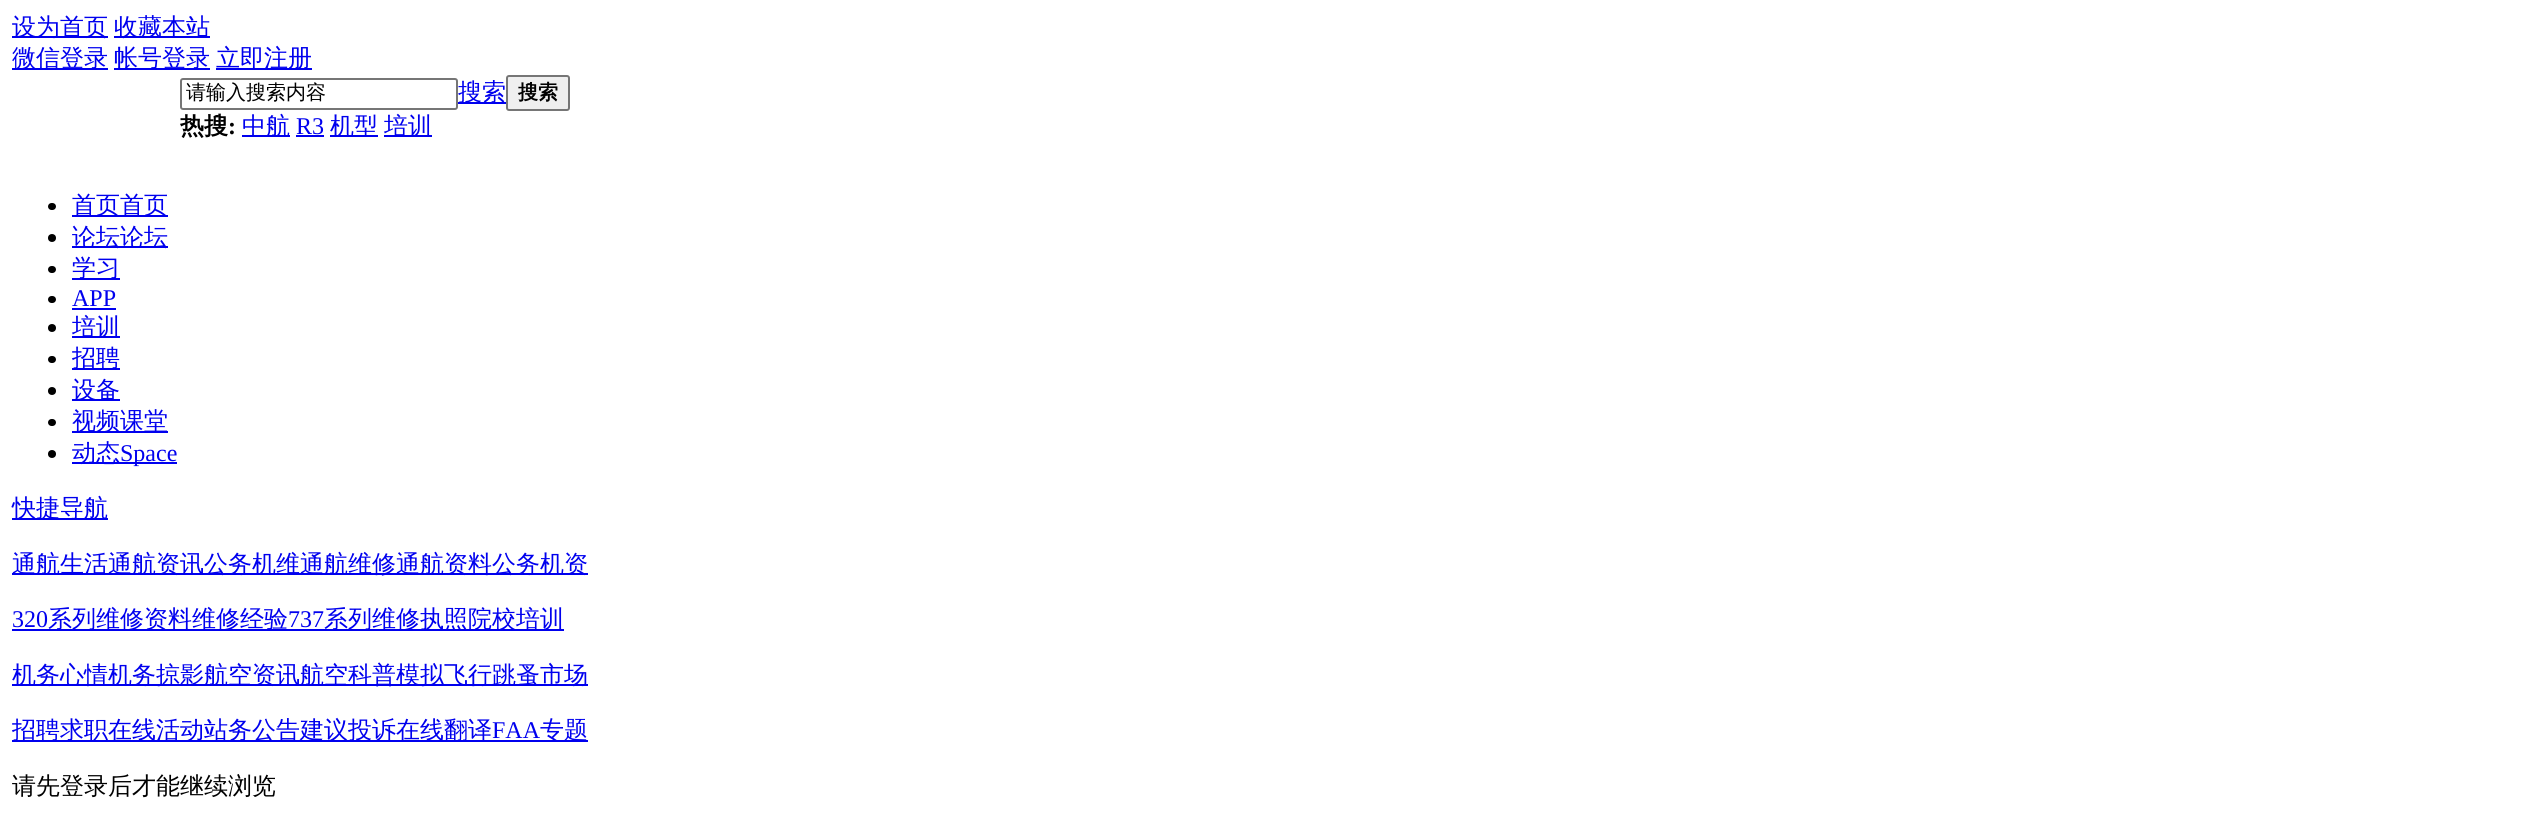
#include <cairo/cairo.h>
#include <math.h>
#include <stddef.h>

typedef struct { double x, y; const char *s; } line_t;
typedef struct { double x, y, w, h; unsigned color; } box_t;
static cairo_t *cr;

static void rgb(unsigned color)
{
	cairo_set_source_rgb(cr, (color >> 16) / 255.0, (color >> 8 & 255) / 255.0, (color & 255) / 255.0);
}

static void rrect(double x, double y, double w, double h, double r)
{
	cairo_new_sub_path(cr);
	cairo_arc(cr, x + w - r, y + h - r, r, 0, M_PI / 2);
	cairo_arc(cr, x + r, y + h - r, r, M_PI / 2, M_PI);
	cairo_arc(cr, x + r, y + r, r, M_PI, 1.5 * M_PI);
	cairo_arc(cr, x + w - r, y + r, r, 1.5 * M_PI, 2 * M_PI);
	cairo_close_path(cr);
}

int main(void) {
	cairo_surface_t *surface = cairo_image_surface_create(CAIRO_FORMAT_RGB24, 2524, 830);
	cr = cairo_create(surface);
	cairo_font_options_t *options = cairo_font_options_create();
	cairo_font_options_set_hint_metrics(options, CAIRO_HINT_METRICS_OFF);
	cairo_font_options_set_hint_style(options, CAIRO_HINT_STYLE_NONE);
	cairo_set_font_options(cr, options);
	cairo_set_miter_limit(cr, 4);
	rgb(0xffffff);
	cairo_paint(cr);
	{
		static const box_t items[] = {
			{12, 36, 96, 2, 0x0000ee},
			{114, 36, 96, 2, 0x0000ee},
			{12, 68, 96, 2, 0x0000ee},
			{114, 68, 96, 2, 0x0000ee},
			{216, 68, 96, 2, 0x0000ee},
		};
		for (size_t i = 0; i < sizeof items / sizeof *items; i++) {
			rgb(items[i].color);
			cairo_rectangle(cr, items[i].x, items[i].y, items[i].w, items[i].h);
			cairo_fill(cr);
		}
	}
	rrect(181, 79, 276, 30, 2);
	rgb(0x767676);
	cairo_stroke(cr);
	rgb(0x0000ee);
	cairo_rectangle(cr, 458, 102, 48, 2);
	cairo_fill(cr);
	rgb(0xefefef);
	rrect(507, 76, 62, 34, 2);
	cairo_fill_preserve(cr);
	rgb(0x767676);
	cairo_stroke(cr);
	{
		static const box_t items[] = {
			{242, 135, 48, 2, 0x0000ee},
			{296, 135, 28, 2, 0x0000ee},
			{330, 135, 48, 2, 0x0000ee},
			{384, 135, 48, 2, 0x0000ee},
		};
		for (size_t i = 0; i < sizeof items / sizeof *items; i++) {
			rgb(items[i].color);
			cairo_rectangle(cr, items[i].x, items[i].y, items[i].w, items[i].h);
			cairo_fill(cr);
		}
	}
	rgb(0x000000);
	rrect(48, 203, 8, 7, 3.5);
	cairo_fill(cr);
	rgb(0x0000ee);
	cairo_rectangle(cr, 72, 215, 96, 2);
	cairo_fill(cr);
	rgb(0x000000);
	cairo_arc(cr, 52, 238, 4, 0, 2 * M_PI);
	cairo_fill(cr);
	rgb(0x0000ee);
	cairo_rectangle(cr, 72, 246, 96, 2);
	cairo_fill(cr);
	rgb(0x000000);
	rrect(48, 266, 8, 7, 3.5);
	cairo_fill(cr);
	rgb(0x0000ee);
	cairo_rectangle(cr, 72, 278, 48, 2);
	cairo_fill(cr);
	rgb(0x000000);
	rrect(48, 296, 8, 7, 3.5);
	cairo_fill(cr);
	rgb(0x0000ee);
	cairo_rectangle(cr, 72, 308, 44, 2);
	cairo_fill(cr);
	rgb(0x000000);
	cairo_arc(cr, 52, 328, 4, 0, 2 * M_PI);
	cairo_fill(cr);
	rgb(0x0000ee);
	cairo_rectangle(cr, 72, 336, 48, 2);
	cairo_fill(cr);
	rgb(0x000000);
	rrect(48, 356, 8, 7, 3.5);
	cairo_fill(cr);
	rgb(0x0000ee);
	cairo_rectangle(cr, 72, 368, 48, 2);
	cairo_fill(cr);
	rgb(0x000000);
	cairo_arc(cr, 52, 391, 4, 0, 2 * M_PI);
	cairo_fill(cr);
	rgb(0x0000ee);
	cairo_rectangle(cr, 72, 399, 48, 2);
	cairo_fill(cr);
	rgb(0x000000);
	rrect(48, 419, 8, 7, 3.5);
	cairo_fill(cr);
	rgb(0x0000ee);
	cairo_rectangle(cr, 72, 431, 96, 2);
	cairo_fill(cr);
	rgb(0x000000);
	cairo_arc(cr, 52, 454, 4, 0, 2 * M_PI);
	cairo_fill(cr);
	{
		static const box_t items[] = {
			{72, 462, 105, 2, 0x0000ee},
			{12, 518, 96, 2, 0x0000ee},
			{12, 573, 576, 2, 0x0000ee},
			{12, 629, 552, 2, 0x0000ee},
			{12, 684, 576, 2, 0x0000ee},
			{12, 740, 576, 2, 0x0000ee},
		};
		for (size_t i = 0; i < sizeof items / sizeof *items; i++) {
			rgb(items[i].color);
			cairo_rectangle(cr, items[i].x, items[i].y, items[i].w, items[i].h);
			cairo_fill(cr);
		}
	}
	cairo_select_font_face(cr, "WenQuanYi Zen Hei Medium", CAIRO_FONT_SLANT_NORMAL, CAIRO_FONT_WEIGHT_NORMAL);
	cairo_set_font_size(cr, 24);
	{
		static const line_t items[] = {
			{12, 35, "设为首页"},
			{114, 35, "收藏本站"},
			{12, 66, "微信登录"},
			{114, 66, "帐号登录"},
			{216, 66, "立即注册"},
		};
		for (size_t i = 0; i < sizeof items / sizeof *items; i++) {
			cairo_move_to(cr, items[i].x, items[i].y);
			cairo_show_text(cr, items[i].s);
		}
	}
	cairo_set_font_size(cr, 20);
	rgb(0x000000);
	cairo_move_to(cr, 186, 99);
	cairo_show_text(cr, "请输入搜索内容");
	cairo_set_font_size(cr, 24);
	rgb(0x0000ee);
	cairo_move_to(cr, 458, 100);
	cairo_show_text(cr, "搜索");
	cairo_select_font_face(cr, "WenQuanYi Zen Hei", CAIRO_FONT_SLANT_NORMAL, CAIRO_FONT_WEIGHT_BOLD);
	cairo_set_font_size(cr, 20);
	rgb(0x000000);
	cairo_move_to(cr, 518, 99);
	cairo_show_text(cr, "搜索");
	cairo_set_font_size(cr, 24);
	cairo_move_to(cr, 180, 134);
	cairo_show_text(cr, "热搜");
	cairo_select_font_face(cr, "Liberation Serif", CAIRO_FONT_SLANT_NORMAL, CAIRO_FONT_WEIGHT_BOLD);
	cairo_move_to(cr, 228, 134);
	cairo_show_text(cr, ":");
	cairo_select_font_face(cr, "WenQuanYi Zen Hei Medium", CAIRO_FONT_SLANT_NORMAL, CAIRO_FONT_WEIGHT_NORMAL);
	rgb(0x0000ee);
	cairo_move_to(cr, 242, 134);
	cairo_show_text(cr, "中航");
	cairo_select_font_face(cr, "Liberation Serif", CAIRO_FONT_SLANT_NORMAL, CAIRO_FONT_WEIGHT_NORMAL);
	cairo_move_to(cr, 296, 134);
	cairo_show_text(cr, "R3");
	cairo_select_font_face(cr, "WenQuanYi Zen Hei Medium", CAIRO_FONT_SLANT_NORMAL, CAIRO_FONT_WEIGHT_NORMAL);
	{
		static const line_t items[] = {
			{330, 134, "机型"},
			{384, 134, "培训"},
			{72, 213, "首页首页"},
			{72, 245, "论坛论坛"},
			{72, 276, "学习"},
		};
		for (size_t i = 0; i < sizeof items / sizeof *items; i++) {
			cairo_move_to(cr, items[i].x, items[i].y);
			cairo_show_text(cr, items[i].s);
		}
	}
	cairo_select_font_face(cr, "Liberation Serif", CAIRO_FONT_SLANT_NORMAL, CAIRO_FONT_WEIGHT_NORMAL);
	cairo_move_to(cr, 72, 306);
	cairo_show_text(cr, "APP");
	cairo_select_font_face(cr, "WenQuanYi Zen Hei Medium", CAIRO_FONT_SLANT_NORMAL, CAIRO_FONT_WEIGHT_NORMAL);
	{
		static const line_t items[] = {
			{72, 335, "培训"},
			{72, 366, "招聘"},
			{72, 398, "设备"},
			{72, 429, "视频课堂"},
			{72, 461, "动态"},
		};
		for (size_t i = 0; i < sizeof items / sizeof *items; i++) {
			cairo_move_to(cr, items[i].x, items[i].y);
			cairo_show_text(cr, items[i].s);
		}
	}
	cairo_select_font_face(cr, "Liberation Serif", CAIRO_FONT_SLANT_NORMAL, CAIRO_FONT_WEIGHT_NORMAL);
	cairo_move_to(cr, 120, 461);
	cairo_show_text(cr, "Space");
	cairo_select_font_face(cr, "WenQuanYi Zen Hei Medium", CAIRO_FONT_SLANT_NORMAL, CAIRO_FONT_WEIGHT_NORMAL);
	cairo_move_to(cr, 12, 516);
	cairo_show_text(cr, "快捷导航");
	cairo_move_to(cr, 12, 572);
	cairo_show_text(cr, "通航生活通航资讯公务机维通航维修通航资料公务机资");
	cairo_select_font_face(cr, "Liberation Serif", CAIRO_FONT_SLANT_NORMAL, CAIRO_FONT_WEIGHT_NORMAL);
	cairo_move_to(cr, 12, 627);
	cairo_show_text(cr, "320");
	cairo_select_font_face(cr, "WenQuanYi Zen Hei Medium", CAIRO_FONT_SLANT_NORMAL, CAIRO_FONT_WEIGHT_NORMAL);
	cairo_move_to(cr, 48, 627);
	cairo_show_text(cr, "系列维修资料维修经验");
	cairo_select_font_face(cr, "Liberation Serif", CAIRO_FONT_SLANT_NORMAL, CAIRO_FONT_WEIGHT_NORMAL);
	cairo_move_to(cr, 288, 627);
	cairo_show_text(cr, "737");
	cairo_select_font_face(cr, "WenQuanYi Zen Hei Medium", CAIRO_FONT_SLANT_NORMAL, CAIRO_FONT_WEIGHT_NORMAL);
	{
		static const line_t items[] = {
			{324, 627, "系列维修执照院校培训"},
			{12, 683, "机务心情机务掠影航空资讯航空科普模拟飞行跳蚤市场"},
			{12, 738, "招聘求职在线活动站务公告建议投诉在线翻译"},
		};
		for (size_t i = 0; i < sizeof items / sizeof *items; i++) {
			cairo_move_to(cr, items[i].x, items[i].y);
			cairo_show_text(cr, items[i].s);
		}
	}
	cairo_select_font_face(cr, "Liberation Serif", CAIRO_FONT_SLANT_NORMAL, CAIRO_FONT_WEIGHT_NORMAL);
	cairo_move_to(cr, 492, 738);
	cairo_show_text(cr, "FAA");
	cairo_select_font_face(cr, "WenQuanYi Zen Hei Medium", CAIRO_FONT_SLANT_NORMAL, CAIRO_FONT_WEIGHT_NORMAL);
	cairo_move_to(cr, 540, 738);
	cairo_show_text(cr, "专题");
	rgb(0x000000);
	cairo_move_to(cr, 12, 794);
	cairo_show_text(cr, "请先登录后才能继续浏览");
	cairo_surface_write_to_png(surface, "page.png");
	cairo_font_options_destroy(options);
	cairo_destroy(cr);
	cairo_surface_destroy(surface);
	return 0;
}
